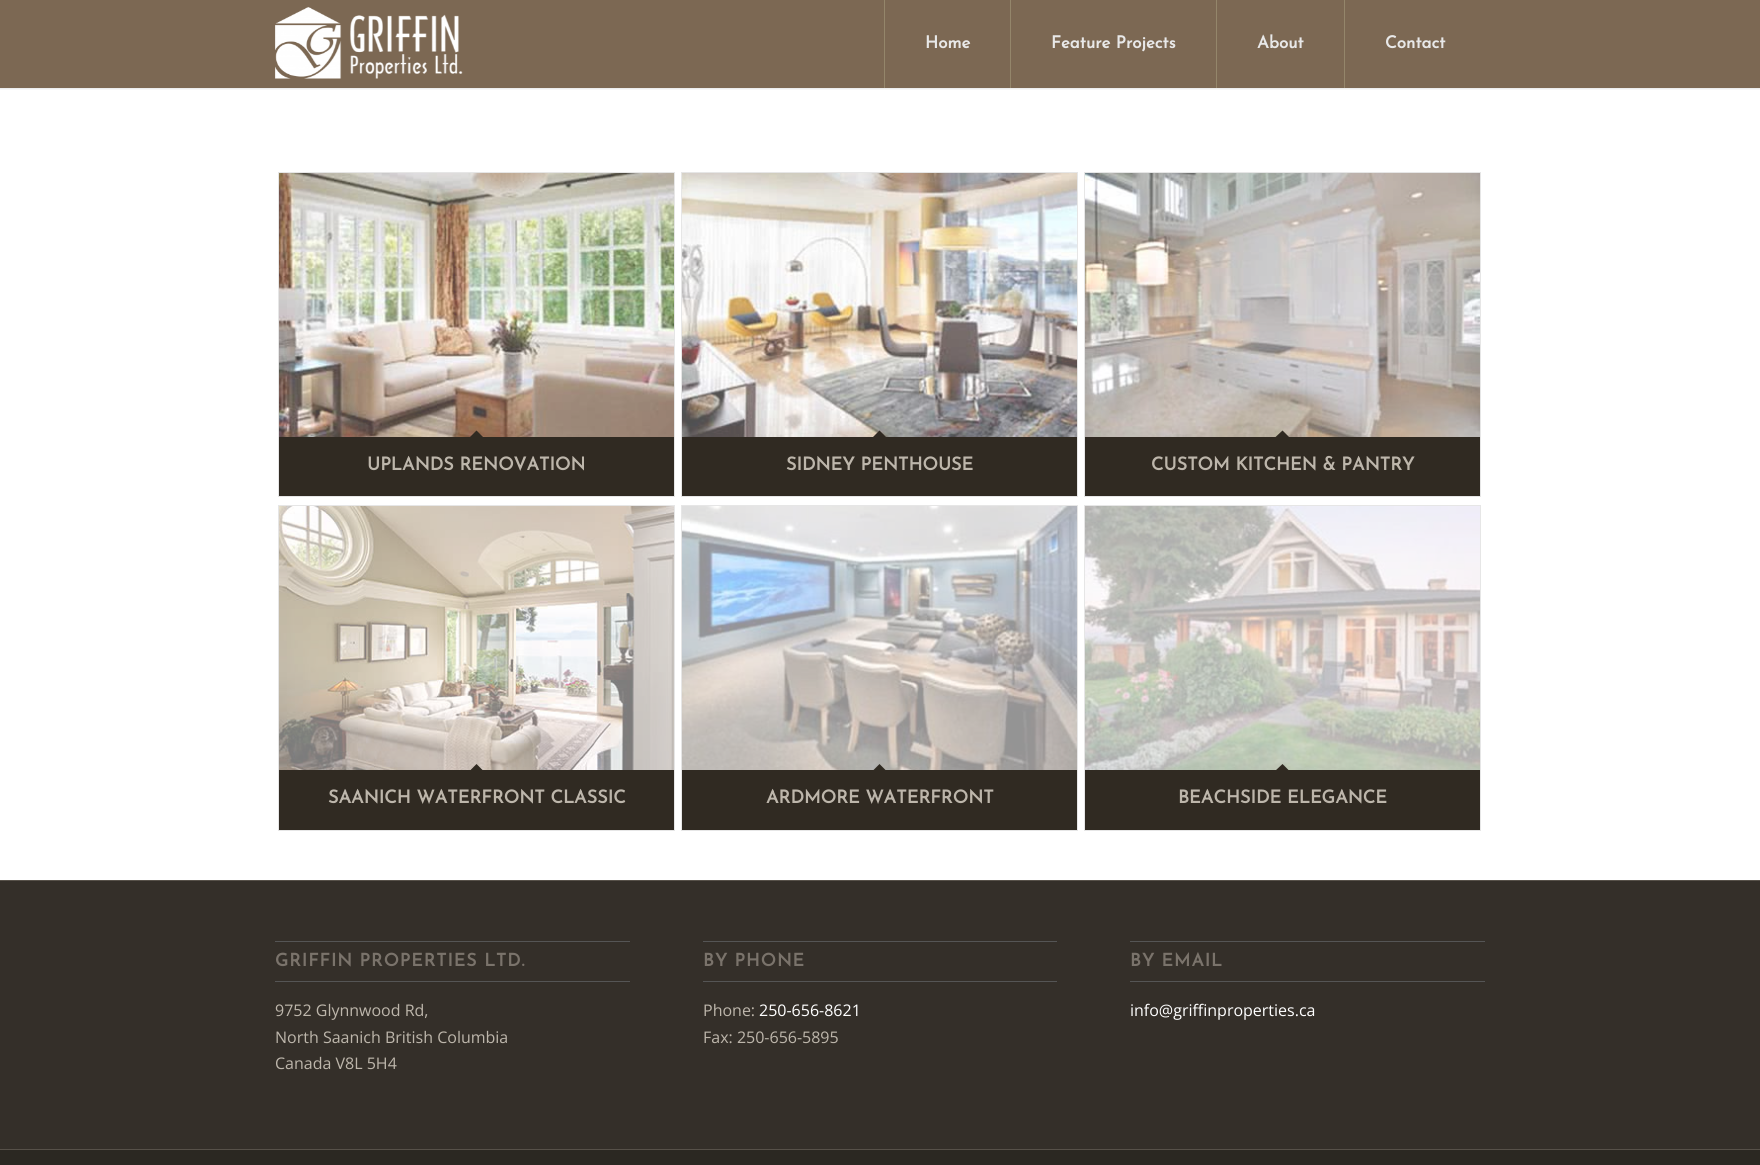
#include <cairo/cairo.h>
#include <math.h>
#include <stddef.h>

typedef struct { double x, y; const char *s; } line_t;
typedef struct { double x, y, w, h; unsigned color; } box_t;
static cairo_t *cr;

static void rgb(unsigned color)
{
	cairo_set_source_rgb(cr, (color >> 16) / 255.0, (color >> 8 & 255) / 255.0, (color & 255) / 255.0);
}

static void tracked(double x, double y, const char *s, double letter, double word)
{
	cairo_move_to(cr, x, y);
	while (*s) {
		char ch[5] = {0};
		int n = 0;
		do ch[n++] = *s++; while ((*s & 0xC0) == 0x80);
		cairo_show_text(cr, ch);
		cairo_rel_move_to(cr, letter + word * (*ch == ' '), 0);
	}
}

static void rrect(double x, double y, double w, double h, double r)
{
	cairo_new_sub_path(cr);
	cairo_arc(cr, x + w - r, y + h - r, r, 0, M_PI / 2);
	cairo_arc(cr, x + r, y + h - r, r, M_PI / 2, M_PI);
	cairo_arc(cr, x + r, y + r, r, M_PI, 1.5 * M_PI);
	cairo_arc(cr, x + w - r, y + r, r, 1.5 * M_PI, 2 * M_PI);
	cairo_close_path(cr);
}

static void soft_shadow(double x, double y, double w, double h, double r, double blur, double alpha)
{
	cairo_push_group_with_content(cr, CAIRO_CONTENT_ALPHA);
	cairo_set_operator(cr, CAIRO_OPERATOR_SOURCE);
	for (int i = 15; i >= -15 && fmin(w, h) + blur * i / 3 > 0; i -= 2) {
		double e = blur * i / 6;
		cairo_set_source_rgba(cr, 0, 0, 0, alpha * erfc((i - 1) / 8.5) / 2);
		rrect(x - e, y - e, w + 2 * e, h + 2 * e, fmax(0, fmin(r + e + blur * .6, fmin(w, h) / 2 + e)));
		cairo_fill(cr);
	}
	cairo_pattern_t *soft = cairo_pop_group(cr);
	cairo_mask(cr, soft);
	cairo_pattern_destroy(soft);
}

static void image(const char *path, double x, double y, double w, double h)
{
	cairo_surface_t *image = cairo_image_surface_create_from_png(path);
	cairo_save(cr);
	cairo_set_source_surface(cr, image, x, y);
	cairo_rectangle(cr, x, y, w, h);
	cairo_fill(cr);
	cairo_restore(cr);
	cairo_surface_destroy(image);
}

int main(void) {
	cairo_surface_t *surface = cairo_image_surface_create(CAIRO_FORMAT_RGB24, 1760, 1165);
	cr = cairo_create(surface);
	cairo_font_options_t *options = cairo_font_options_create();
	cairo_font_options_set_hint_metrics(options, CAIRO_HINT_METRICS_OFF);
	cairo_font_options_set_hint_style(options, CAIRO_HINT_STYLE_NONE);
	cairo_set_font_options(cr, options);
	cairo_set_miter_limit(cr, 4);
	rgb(0x7c6853);
	cairo_paint(cr);
	rgb(0xffffff);
	cairo_rectangle(cr, 0, 88, 1760, 792);
	cairo_fill(cr);
	cairo_save(cr);
	cairo_rectangle(cr, 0, 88, 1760, 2);
	cairo_clip(cr);
	rgb(0x000000);
	soft_shadow(-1, -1, 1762, 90, 0, 1, 0.1);
	cairo_restore(cr);
	image("img/1.png", 275, 7, 188, 72);
	{
		static const box_t items[] = {
			{884, 0, 1, 88, 0x94866b},
			{1010, 0, 1, 88, 0x94866b},
			{1216, 0, 1, 88, 0x94866b},
			{1344, 0, 1, 88, 0x94866b},
		};
		for (size_t i = 0; i < sizeof items / sizeof *items; i++) {
			rgb(items[i].color);
			cairo_rectangle(cr, items[i].x, items[i].y, items[i].w, items[i].h);
			cairo_fill(cr);
		}
	}
	cairo_rectangle(cr, 278.5, 172.5, 396, 324);
	rgb(0xe6e6e6);
	cairo_set_line_width(cr, 1);
	cairo_stroke(cr);
	image("img/2.png", 279, 173, 395, 264);
	rgb(0x302a22);
	cairo_rectangle(cr, 279, 437, 395, 59);
	cairo_fill(cr);
	cairo_new_path(cr);
	cairo_move_to(cr, 476.5, 430.5);
	cairo_line_to(cr, 483.5, 437.5);
	cairo_line_to(cr, 476.5, 444.5);
	cairo_line_to(cr, 469.5, 437.5);
	cairo_close_path(cr);
	cairo_fill(cr);
	cairo_rectangle(cr, 681.5, 172.5, 396, 324);
	rgb(0xe6e6e6);
	cairo_stroke(cr);
	image("img/3.png", 682, 173, 395, 264);
	rgb(0x302a22);
	cairo_rectangle(cr, 682, 437, 395, 59);
	cairo_fill(cr);
	cairo_new_path(cr);
	cairo_move_to(cr, 879.5, 430.5);
	cairo_line_to(cr, 886.5, 437.5);
	cairo_line_to(cr, 879.5, 444.5);
	cairo_line_to(cr, 872.5, 437.5);
	cairo_close_path(cr);
	cairo_fill(cr);
	cairo_rectangle(cr, 1084.5, 172.5, 396, 324);
	rgb(0xe6e6e6);
	cairo_stroke(cr);
	image("img/4.png", 1085, 173, 395, 264);
	rgb(0x302a22);
	cairo_rectangle(cr, 1085, 437, 395, 59);
	cairo_fill(cr);
	cairo_new_path(cr);
	cairo_move_to(cr, 1282.5, 430.5);
	cairo_line_to(cr, 1289.5, 437.5);
	cairo_line_to(cr, 1282.5, 444.5);
	cairo_line_to(cr, 1275, 437.5);
	cairo_close_path(cr);
	cairo_fill(cr);
	cairo_rectangle(cr, 278.5, 505.5, 396, 325);
	rgb(0xe6e6e6);
	cairo_stroke(cr);
	image("img/5.png", 279, 506, 395, 264);
	rgb(0x302a22);
	cairo_rectangle(cr, 279, 770, 395, 60);
	cairo_fill(cr);
	cairo_new_path(cr);
	cairo_move_to(cr, 476.5, 764);
	cairo_line_to(cr, 483.5, 771);
	cairo_line_to(cr, 476.5, 778);
	cairo_line_to(cr, 469.5, 771);
	cairo_close_path(cr);
	cairo_fill(cr);
	cairo_rectangle(cr, 681.5, 505.5, 396, 325);
	rgb(0xe6e6e6);
	cairo_stroke(cr);
	image("img/6.png", 682, 506, 395, 264);
	rgb(0x302a22);
	cairo_rectangle(cr, 682, 770, 395, 60);
	cairo_fill(cr);
	cairo_new_path(cr);
	cairo_move_to(cr, 879.5, 764);
	cairo_line_to(cr, 886.5, 771);
	cairo_line_to(cr, 879.5, 778);
	cairo_line_to(cr, 872.5, 771);
	cairo_close_path(cr);
	cairo_fill(cr);
	cairo_rectangle(cr, 1084.5, 505.5, 396, 325);
	rgb(0xe6e6e6);
	cairo_stroke(cr);
	image("img/7.png", 1085, 506, 395, 264);
	rgb(0x302a22);
	cairo_rectangle(cr, 1085, 770, 395, 60);
	cairo_fill(cr);
	cairo_new_path(cr);
	cairo_move_to(cr, 1282.5, 764);
	cairo_line_to(cr, 1289.5, 771);
	cairo_line_to(cr, 1282.5, 778);
	cairo_line_to(cr, 1275, 771);
	cairo_close_path(cr);
	cairo_fill(cr);
	{
		static const box_t items[] = {
			{0, 881, 1760, 268, 0x342f29},
			{0, 880, 1760, 1, 0x575149},
			{275, 941, 355, 1, 0x555555},
			{275, 981, 355, 1, 0x555555},
			{703, 941, 354, 1, 0x555555},
			{703, 981, 354, 1, 0x555555},
			{1130, 941, 355, 1, 0x555555},
			{1130, 981, 355, 1, 0x555555},
			{0, 1150, 1760, 15, 0x2b2822},
			{0, 1149, 1760, 1, 0x575149},
		};
		for (size_t i = 0; i < sizeof items / sizeof *items; i++) {
			rgb(items[i].color);
			cairo_rectangle(cr, items[i].x, items[i].y, items[i].w, items[i].h);
			cairo_fill(cr);
		}
	}
	cairo_select_font_face(cr, "Josefin Sans", CAIRO_FONT_SLANT_NORMAL, CAIRO_FONT_WEIGHT_BOLD);
	cairo_set_font_size(cr, 17);
	rgb(0xe8e8e8);
	{
		static const line_t items[] = {
			{925, 48, "Home"},
			{1051, 48, "Feature Projects"},
			{1257, 48, "About"},
			{1385, 48, "Contact"},
		};
		for (size_t i = 0; i < sizeof items / sizeof *items; i++) {
			cairo_move_to(cr, items[i].x, items[i].y);
			cairo_show_text(cr, items[i].s);
		}
	}
	cairo_set_font_size(cr, 18);
	rgb(0xbdb6ab);
	{
		static const line_t items[] = {
			{367, 470, "UPLANDS RENOVATION"},
			{786, 470, "SIDNEY PENTHOUSE"},
			{1151, 470, "CUSTOM KITCHEN & PANTRY"},
			{328, 803, "SAANICH WATERFRONT CLASSIC"},
			{766, 803, "ARDMORE WATERFRONT"},
			{1178, 803, "BEACHSIDE ELEGANCE"},
		};
		for (size_t i = 0; i < sizeof items / sizeof *items; i++) {
			cairo_move_to(cr, items[i].x, items[i].y);
			cairo_show_text(cr, items[i].s);
		}
	}
	cairo_set_font_size(cr, 17.6);
	rgb(0x7a736b);
	tracked(275, 966, "GRIFFIN PROPERTIES LTD.", 1, 0);
	cairo_select_font_face(cr, "Open Sans", CAIRO_FONT_SLANT_NORMAL, CAIRO_FONT_WEIGHT_NORMAL);
	cairo_set_font_size(cr, 16);
	rgb(0xbdb6ab);
	{
		static const line_t items[] = {
			{275, 1016, "9752 Glynnwood Rd,"},
			{275, 1043, "North Saanich British Columbia"},
			{275, 1069, "Canada V8L 5H4"},
		};
		for (size_t i = 0; i < sizeof items / sizeof *items; i++) {
			cairo_move_to(cr, items[i].x, items[i].y);
			cairo_show_text(cr, items[i].s);
		}
	}
	cairo_select_font_face(cr, "Josefin Sans", CAIRO_FONT_SLANT_NORMAL, CAIRO_FONT_WEIGHT_BOLD);
	cairo_set_font_size(cr, 17.6);
	rgb(0x7a736b);
	tracked(703, 966, "BY PHONE", 1, 0);
	cairo_select_font_face(cr, "Open Sans", CAIRO_FONT_SLANT_NORMAL, CAIRO_FONT_WEIGHT_NORMAL);
	cairo_set_font_size(cr, 16);
	rgb(0xbdb6ab);
	cairo_move_to(cr, 703, 1016);
	cairo_show_text(cr, "Phone:");
	rgb(0xffffff);
	cairo_move_to(cr, 759, 1016);
	cairo_show_text(cr, "250-656-8621");
	rgb(0xbdb6ab);
	cairo_move_to(cr, 703, 1043);
	cairo_show_text(cr, "Fax: 250-656-5895");
	cairo_select_font_face(cr, "Josefin Sans", CAIRO_FONT_SLANT_NORMAL, CAIRO_FONT_WEIGHT_BOLD);
	cairo_set_font_size(cr, 17.6);
	rgb(0x7a736b);
	tracked(1130, 966, "BY EMAIL", 1, 0);
	cairo_select_font_face(cr, "Open Sans", CAIRO_FONT_SLANT_NORMAL, CAIRO_FONT_WEIGHT_NORMAL);
	cairo_set_font_size(cr, 16);
	rgb(0xffffff);
	cairo_move_to(cr, 1130, 1016);
	cairo_show_text(cr, "info@griffinproperties.ca");
	cairo_surface_write_to_png(surface, "page.png");
	cairo_font_options_destroy(options);
	cairo_destroy(cr);
	cairo_surface_destroy(surface);
	return 0;
}
